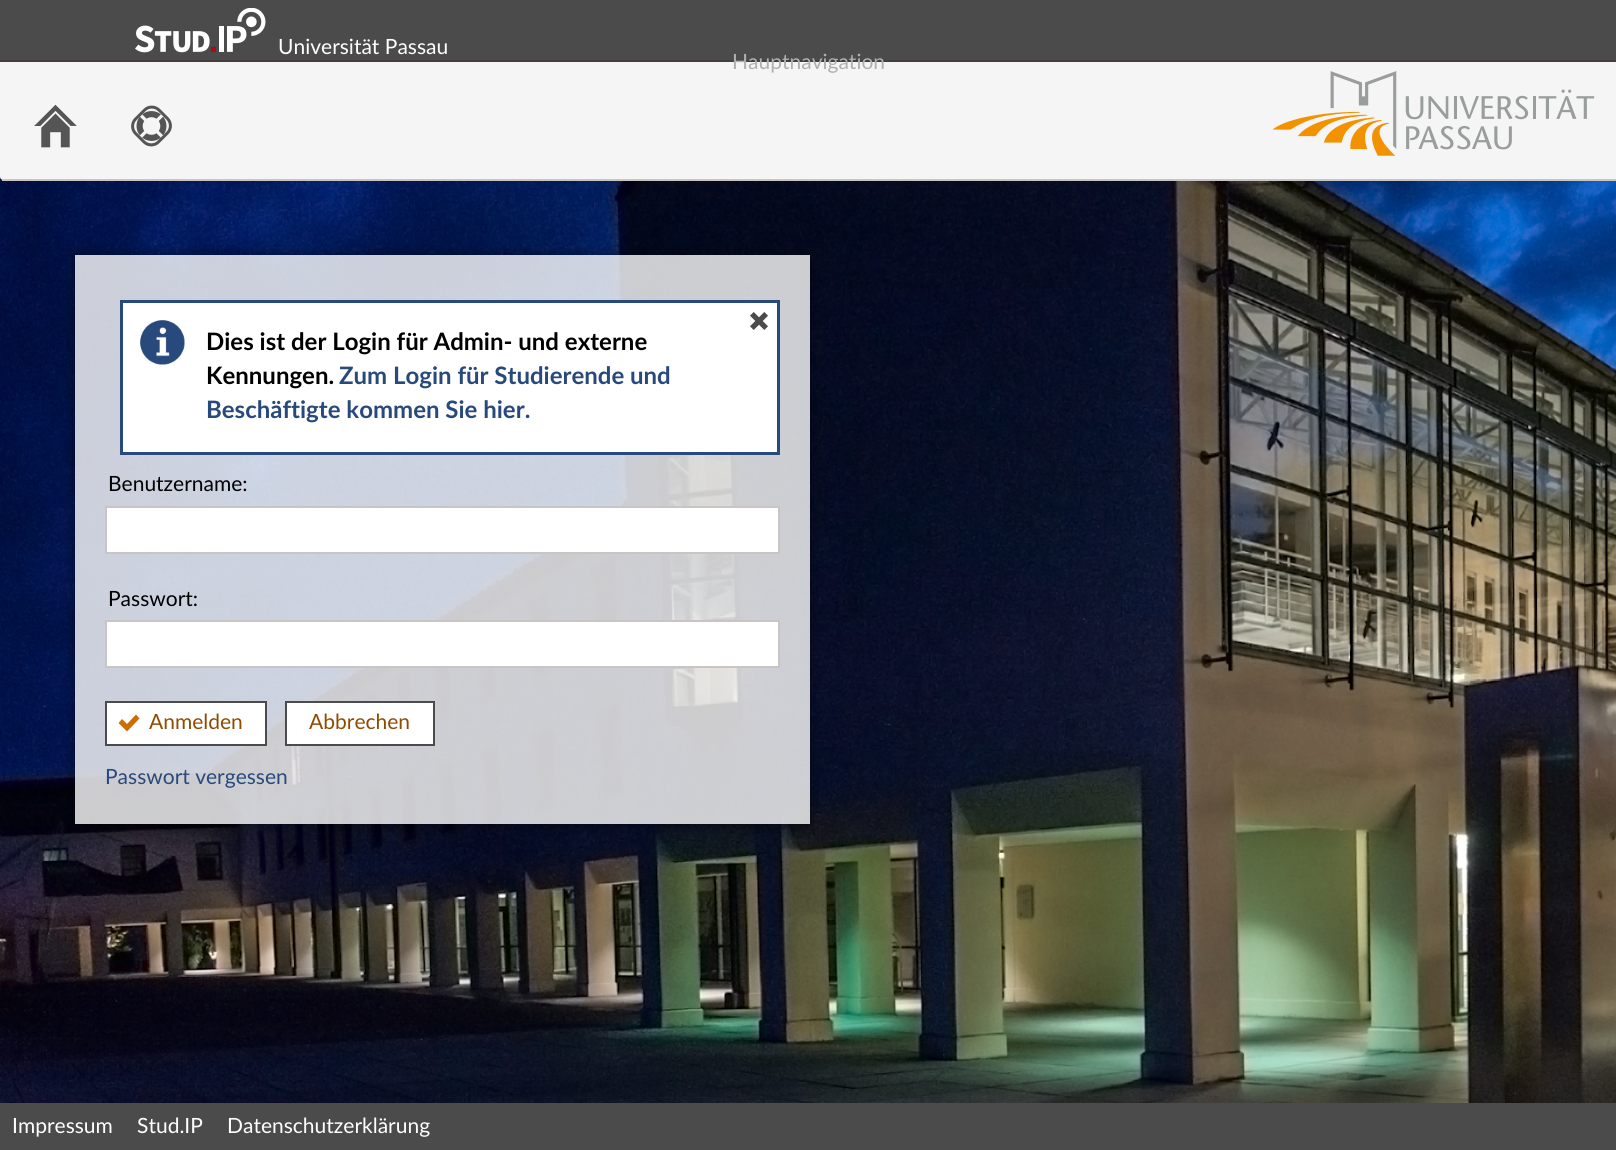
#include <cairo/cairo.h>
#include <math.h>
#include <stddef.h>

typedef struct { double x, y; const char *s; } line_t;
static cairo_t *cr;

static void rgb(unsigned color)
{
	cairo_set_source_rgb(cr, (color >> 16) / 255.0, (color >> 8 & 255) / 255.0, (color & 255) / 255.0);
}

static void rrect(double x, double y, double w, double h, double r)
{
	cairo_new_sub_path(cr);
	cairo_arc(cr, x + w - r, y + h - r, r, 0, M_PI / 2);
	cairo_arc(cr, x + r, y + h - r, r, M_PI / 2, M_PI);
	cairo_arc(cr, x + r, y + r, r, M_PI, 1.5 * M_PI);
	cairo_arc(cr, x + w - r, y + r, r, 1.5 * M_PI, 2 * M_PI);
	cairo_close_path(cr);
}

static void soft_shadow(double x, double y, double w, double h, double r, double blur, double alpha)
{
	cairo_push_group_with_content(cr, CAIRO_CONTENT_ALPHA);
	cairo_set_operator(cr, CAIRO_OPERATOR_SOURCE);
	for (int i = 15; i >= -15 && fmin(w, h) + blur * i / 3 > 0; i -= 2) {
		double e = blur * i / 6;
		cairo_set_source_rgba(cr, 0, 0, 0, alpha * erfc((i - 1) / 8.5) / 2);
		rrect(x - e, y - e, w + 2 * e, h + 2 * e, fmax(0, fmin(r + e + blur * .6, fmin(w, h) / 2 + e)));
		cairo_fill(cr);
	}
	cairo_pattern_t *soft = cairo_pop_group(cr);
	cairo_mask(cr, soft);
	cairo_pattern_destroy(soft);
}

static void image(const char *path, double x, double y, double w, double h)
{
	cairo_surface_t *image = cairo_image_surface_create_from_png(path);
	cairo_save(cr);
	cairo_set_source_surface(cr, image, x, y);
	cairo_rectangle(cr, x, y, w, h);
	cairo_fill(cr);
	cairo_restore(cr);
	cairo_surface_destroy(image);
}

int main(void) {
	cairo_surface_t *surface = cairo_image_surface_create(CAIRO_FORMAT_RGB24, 1616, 1150);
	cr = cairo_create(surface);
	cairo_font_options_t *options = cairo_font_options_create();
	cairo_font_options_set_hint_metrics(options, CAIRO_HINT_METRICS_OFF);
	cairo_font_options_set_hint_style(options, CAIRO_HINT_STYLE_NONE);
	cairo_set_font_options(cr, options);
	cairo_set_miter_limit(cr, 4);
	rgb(0xffffff);
	cairo_paint(cr);
	rgb(0x4b4b4b);
	cairo_rectangle(cr, 0, 0, 1616, 60);
	cairo_fill(cr);
	image("img/1.png", 135, 8, 131, 45);
	image("img/5.png", 0, 177, 1616, 926);
	rgb(0xf6f5f5);
	cairo_new_path(cr);
	cairo_move_to(cr, 0, 60);
	cairo_line_to(cr, 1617, 60);
	cairo_line_to(cr, 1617, 177);
	cairo_curve_to(cr, 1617, 178.5, 1615.5, 180, 1614, 180);
	cairo_line_to(cr, 3, 180);
	cairo_curve_to(cr, 1.5, 180, 0, 178.5, 0, 177);
	cairo_close_path(cr);
	cairo_fill(cr);
	rgb(0x443d3d);
	cairo_rectangle(cr, 0, 60, 1616, 2);
	cairo_fill(cr);
	rgb(0xcac5c5);
	cairo_rectangle(cr, 2, 179, 1614, 2);
	cairo_fill(cr);
	image("img/2.png", 34, 104, 43, 44);
	image("img/3.png", 131, 105, 41, 42);
	image("img/4.png", 1272, 71, 323, 85);
	cairo_save(cr);
	cairo_set_fill_rule(cr, CAIRO_FILL_RULE_EVEN_ODD);
	cairo_new_path(cr);
	cairo_move_to(cr, 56, 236);
	cairo_line_to(cr, 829, 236);
	cairo_line_to(cr, 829, 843);
	cairo_line_to(cr, 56, 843);
	cairo_close_path(cr);
	cairo_move_to(cr, 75, 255);
	cairo_line_to(cr, 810, 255);
	cairo_line_to(cr, 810, 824);
	cairo_line_to(cr, 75, 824);
	cairo_close_path(cr);
	cairo_clip(cr);
	rgb(0x000000);
	soft_shadow(75, 255, 735, 569, 0, 6, 0.5);
	cairo_restore(cr);
	cairo_set_source_rgba(cr, 1, 1, 1, 0.8);
	cairo_rectangle(cr, 75, 255, 735, 569);
	cairo_fill(cr);
	rgb(0xffffff);
	cairo_rectangle(cr, 123, 303, 654, 149);
	cairo_fill(cr);
	image("img/6.png", 140, 320, 45, 45);
	cairo_rectangle(cr, 121.5, 301.5, 657, 152);
	rgb(0x28497c);
	cairo_set_line_width(cr, 3);
	cairo_stroke(cr);
	image("img/7.png", 750, 312, 18, 18);
	rgb(0xffffff);
	cairo_rectangle(cr, 106, 507, 673, 46);
	cairo_fill_preserve(cr);
	rgb(0xcac5c5);
	cairo_set_line_width(cr, 2);
	cairo_stroke(cr);
	rgb(0xffffff);
	cairo_rectangle(cr, 106, 621, 673, 46);
	cairo_fill_preserve(cr);
	rgb(0xcac5c5);
	cairo_stroke(cr);
	rgb(0xffffff);
	cairo_rectangle(cr, 106, 702, 160, 43);
	cairo_fill_preserve(cr);
	rgb(0x4b4b4b);
	cairo_stroke(cr);
	rgb(0xcc6d00);
	cairo_new_path(cr);
	cairo_move_to(cr, 139.5, 718.5);
	cairo_line_to(cr, 136, 714.5);
	cairo_line_to(cr, 127, 724);
	cairo_line_to(cr, 122, 719);
	cairo_line_to(cr, 118.5, 723);
	cairo_line_to(cr, 127, 731.5);
	cairo_close_path(cr);
	cairo_fill(cr);
	rgb(0xffffff);
	cairo_rectangle(cr, 286, 702, 148, 43);
	cairo_fill_preserve(cr);
	rgb(0x4b4b4b);
	cairo_stroke(cr);
	cairo_rectangle(cr, 0, 1103, 1616, 47);
	cairo_fill(cr);
	cairo_select_font_face(cr, "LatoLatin", CAIRO_FONT_SLANT_NORMAL, CAIRO_FONT_WEIGHT_NORMAL);
	cairo_set_font_size(cr, 21);
	rgb(0xffffff);
	cairo_move_to(cr, 278, 54);
	cairo_show_text(cr, "Universität Passau");
	rgb(0xb0afaf);
	cairo_move_to(cr, 732, 69);
	cairo_show_text(cr, "Hauptnavigation");
	cairo_select_font_face(cr, "LatoLatin", CAIRO_FONT_SLANT_NORMAL, CAIRO_FONT_WEIGHT_BOLD);
	cairo_set_font_size(cr, 24);
	rgb(0x000000);
	cairo_move_to(cr, 206, 350);
	cairo_show_text(cr, "Dies ist der Login für Admin- und externe");
	cairo_move_to(cr, 206, 384);
	cairo_show_text(cr, "Kennungen.");
	rgb(0x28497c);
	cairo_move_to(cr, 339, 384);
	cairo_show_text(cr, "Zum Login für Studierende und");
	cairo_move_to(cr, 206, 418);
	cairo_show_text(cr, "Beschäftigte kommen Sie hier.");
	cairo_select_font_face(cr, "LatoLatin", CAIRO_FONT_SLANT_NORMAL, CAIRO_FONT_WEIGHT_NORMAL);
	cairo_set_font_size(cr, 21);
	rgb(0x000000);
	cairo_move_to(cr, 108, 491);
	cairo_show_text(cr, "Benutzername:");
	cairo_move_to(cr, 108, 606);
	cairo_show_text(cr, "Passwort:");
	rgb(0x8f4c00);
	cairo_move_to(cr, 149, 729);
	cairo_show_text(cr, "Anmelden");
	cairo_move_to(cr, 309, 729);
	cairo_show_text(cr, "Abbrechen");
	rgb(0x28497c);
	cairo_move_to(cr, 105, 784);
	cairo_show_text(cr, "Passwort vergessen");
	rgb(0xffffff);
	{
		static const line_t items[] = {
			{12, 1133, "Impressum"},
			{137, 1133, "Stud.IP"},
			{227, 1133, "Datenschutzerklärung"},
		};
		for (size_t i = 0; i < sizeof items / sizeof *items; i++) {
			cairo_move_to(cr, items[i].x, items[i].y);
			cairo_show_text(cr, items[i].s);
		}
	}
	cairo_surface_write_to_png(surface, "page.png");
	cairo_font_options_destroy(options);
	cairo_destroy(cr);
	cairo_surface_destroy(surface);
	return 0;
}
